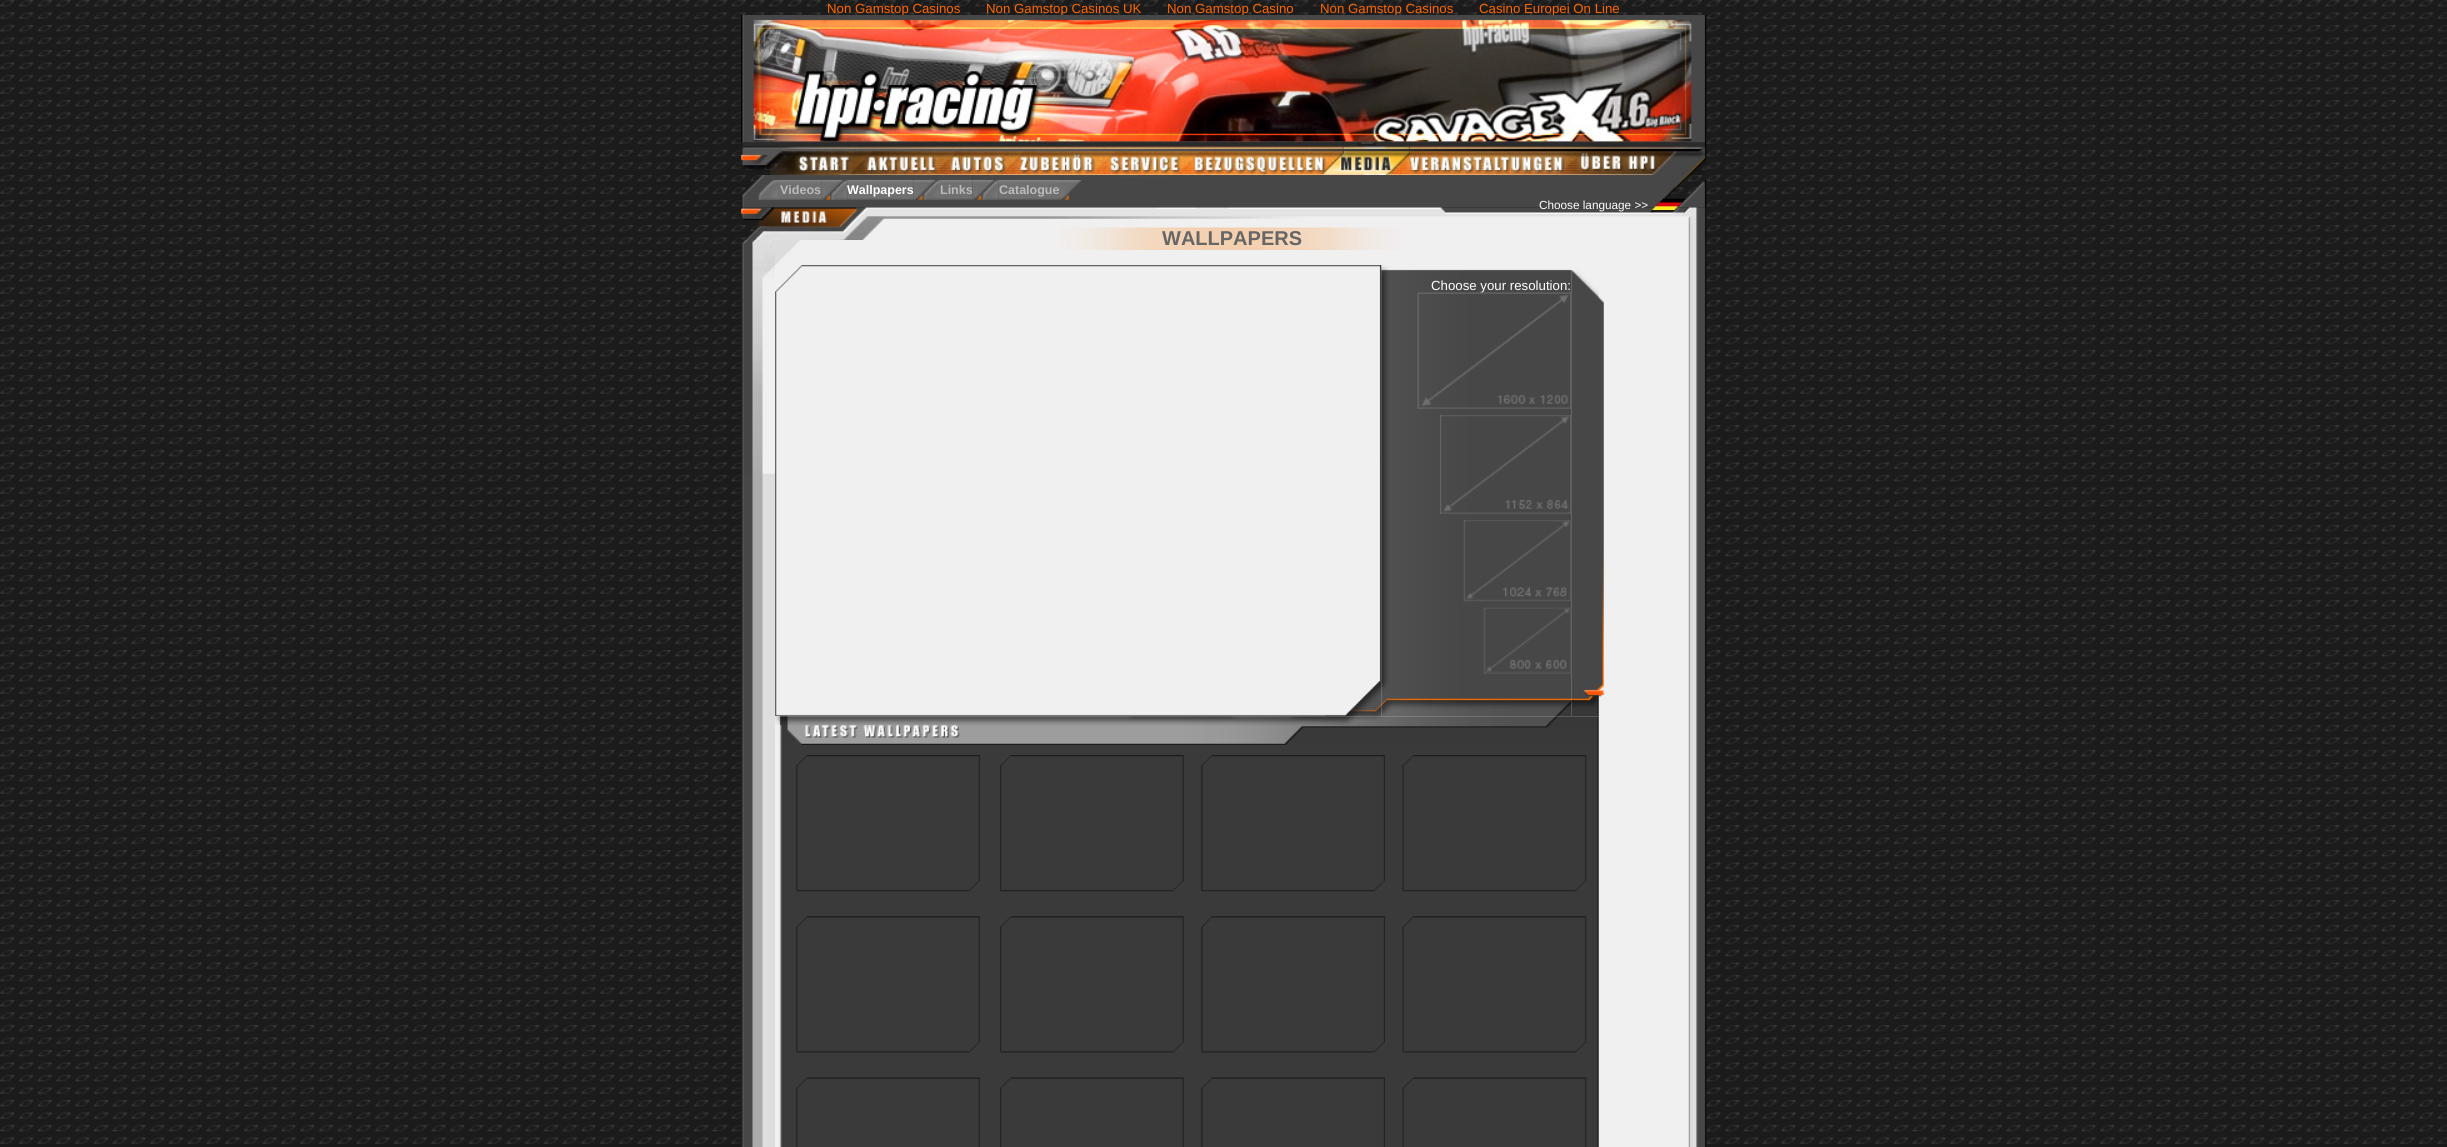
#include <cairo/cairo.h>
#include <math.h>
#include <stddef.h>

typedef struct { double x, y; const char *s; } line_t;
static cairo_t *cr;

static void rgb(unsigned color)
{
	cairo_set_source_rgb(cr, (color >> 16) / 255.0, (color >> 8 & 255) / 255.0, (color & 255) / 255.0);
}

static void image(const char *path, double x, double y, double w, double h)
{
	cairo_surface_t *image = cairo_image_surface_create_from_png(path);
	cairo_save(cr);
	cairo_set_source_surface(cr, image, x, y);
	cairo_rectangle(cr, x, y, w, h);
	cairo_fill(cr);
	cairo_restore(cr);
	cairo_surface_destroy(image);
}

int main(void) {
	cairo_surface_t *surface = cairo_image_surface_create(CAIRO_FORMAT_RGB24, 2447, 1147);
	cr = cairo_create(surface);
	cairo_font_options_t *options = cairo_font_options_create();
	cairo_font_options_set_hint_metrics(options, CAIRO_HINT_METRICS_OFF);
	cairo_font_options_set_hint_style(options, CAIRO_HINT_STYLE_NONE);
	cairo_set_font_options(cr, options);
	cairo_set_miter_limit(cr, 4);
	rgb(0x191919);
	cairo_paint(cr);
	image("img/1.png", 0, 0, 2447, 1144);
	image("img/3.png", 742, 175, 965, 25);
	image("img/4.png", 758, 180, 22, 20);
	image("img/5.png", 780, 179, 42, 21);
	image("img/6.png", 821, 179, 27, 21);
	image("img/7.png", 847, 179, 67, 21);
	image("img/8.png", 914, 176, 26, 24);
	image("img/9.png", 940, 175, 33, 25);
	image("img/10.png", 972, 179, 27, 21);
	image("img/11.png", 998, 179, 62, 21);
	image("img/12.png", 1060, 180, 22, 20);
	image("img/13.png", 741, 200, 966, 8);
	image("img/16.png", 741, 207, 966, 33);
	image("img/15.png", 1652, 198, 33, 12);
	image("img/17.png", 741, 240, 34, 907);
	image("img/18.png", 742, 240, 33, 234);
	rgb(0xf0f0f0);
	cairo_rectangle(cr, 775, 240, 914, 907);
	cairo_fill(cr);
	image("img/19.png", 775, 240, 25, 25);
	image("img/20.png", 1060, 227, 340, 23);
	image("img/22.png", 1381, 265, 191, 452);
	image("img/21.png", 775, 265, 607, 452);
	image("img/24.png", 1440, 415, 132, 99);
	image("img/25.png", 1463, 520, 109, 82);
	image("img/26.png", 1483, 607, 89, 67);
	image("img/29.png", 779, 745, 820, 402);
	image("img/30.png", 796, 755, 184, 137);
	image("img/31.png", 1000, 755, 184, 137);
	image("img/32.png", 1201, 755, 184, 137);
	image("img/33.png", 1402, 755, 185, 137);
	image("img/34.png", 796, 916, 184, 137);
	image("img/35.png", 1000, 916, 184, 137);
	image("img/36.png", 1201, 916, 184, 137);
	image("img/37.png", 1402, 916, 185, 137);
	image("img/38.png", 796, 1077, 184, 70);
	image("img/39.png", 1000, 1077, 184, 70);
	image("img/38.png", 1201, 1077, 184, 70);
	image("img/40.png", 1402, 1077, 185, 70);
	image("img/41.png", 1688, 240, 19, 907);
	cairo_select_font_face(cr, "Liberation Sans", CAIRO_FONT_SLANT_NORMAL, CAIRO_FONT_WEIGHT_NORMAL);
	cairo_set_font_size(cr, 13.25);
	rgb(0xff6600);
	{
		static const line_t items[] = {
			{827, 13, "Non Gamstop Casinos"},
			{986, 13, "Non Gamstop Casinos UK"},
			{1167, 13, "Non Gamstop Casino"},
			{1320, 13, "Non Gamstop Casinos"},
			{1479, 13, "Casino Europei On Line"},
		};
		for (size_t i = 0; i < sizeof items / sizeof *items; i++) {
			cairo_move_to(cr, items[i].x, items[i].y);
			cairo_show_text(cr, items[i].s);
		}
	}
	cairo_select_font_face(cr, "Liberation Sans", CAIRO_FONT_SLANT_NORMAL, CAIRO_FONT_WEIGHT_BOLD);
	cairo_set_font_size(cr, 12.5);
	rgb(0xbbbbbb);
	cairo_move_to(cr, 780, 194);
	cairo_show_text(cr, "Videos");
	rgb(0xffffff);
	cairo_move_to(cr, 847, 194);
	cairo_show_text(cr, "Wallpapers");
	rgb(0xbbbbbb);
	cairo_move_to(cr, 940, 194);
	cairo_show_text(cr, "Links");
	cairo_move_to(cr, 999, 194);
	cairo_show_text(cr, "Catalogue");
	image("img/14.png", 741, 15, 966, 128);
	image("img/2.png", 741, 142, 966, 33);
	cairo_select_font_face(cr, "Liberation Sans", CAIRO_FONT_SLANT_NORMAL, CAIRO_FONT_WEIGHT_NORMAL);
	cairo_set_font_size(cr, 11.75);
	rgb(0xffffff);
	cairo_move_to(cr, 1539, 209);
	cairo_show_text(cr, "Choose language >>");
	cairo_select_font_face(cr, "Liberation Sans", CAIRO_FONT_SLANT_NORMAL, CAIRO_FONT_WEIGHT_BOLD);
	cairo_set_font_size(cr, 20);
	rgb(0x666666);
	cairo_move_to(cr, 1162, 245);
	cairo_show_text(cr, "WALLPAPERS");
	cairo_select_font_face(cr, "Liberation Sans", CAIRO_FONT_SLANT_NORMAL, CAIRO_FONT_WEIGHT_NORMAL);
	cairo_set_font_size(cr, 13.25);
	rgb(0xffffff);
	cairo_move_to(cr, 1431, 290);
	cairo_show_text(cr, "Choose your resolution:");
	image("img/23.png", 1417, 292, 155, 117);
	image("img/27.png", 1571, 269, 33, 448);
	image("img/28.png", 775, 716, 824, 29);
	cairo_surface_write_to_png(surface, "page.png");
	cairo_font_options_destroy(options);
	cairo_destroy(cr);
	cairo_surface_destroy(surface);
	return 0;
}
